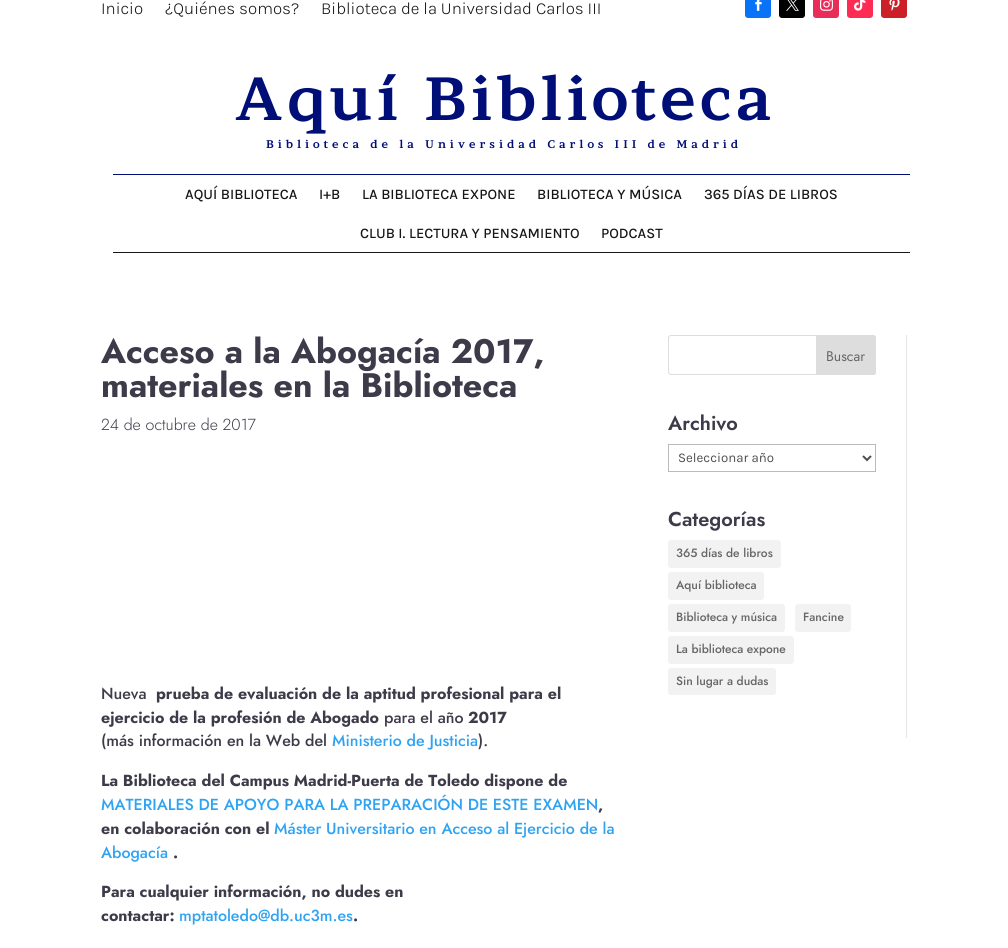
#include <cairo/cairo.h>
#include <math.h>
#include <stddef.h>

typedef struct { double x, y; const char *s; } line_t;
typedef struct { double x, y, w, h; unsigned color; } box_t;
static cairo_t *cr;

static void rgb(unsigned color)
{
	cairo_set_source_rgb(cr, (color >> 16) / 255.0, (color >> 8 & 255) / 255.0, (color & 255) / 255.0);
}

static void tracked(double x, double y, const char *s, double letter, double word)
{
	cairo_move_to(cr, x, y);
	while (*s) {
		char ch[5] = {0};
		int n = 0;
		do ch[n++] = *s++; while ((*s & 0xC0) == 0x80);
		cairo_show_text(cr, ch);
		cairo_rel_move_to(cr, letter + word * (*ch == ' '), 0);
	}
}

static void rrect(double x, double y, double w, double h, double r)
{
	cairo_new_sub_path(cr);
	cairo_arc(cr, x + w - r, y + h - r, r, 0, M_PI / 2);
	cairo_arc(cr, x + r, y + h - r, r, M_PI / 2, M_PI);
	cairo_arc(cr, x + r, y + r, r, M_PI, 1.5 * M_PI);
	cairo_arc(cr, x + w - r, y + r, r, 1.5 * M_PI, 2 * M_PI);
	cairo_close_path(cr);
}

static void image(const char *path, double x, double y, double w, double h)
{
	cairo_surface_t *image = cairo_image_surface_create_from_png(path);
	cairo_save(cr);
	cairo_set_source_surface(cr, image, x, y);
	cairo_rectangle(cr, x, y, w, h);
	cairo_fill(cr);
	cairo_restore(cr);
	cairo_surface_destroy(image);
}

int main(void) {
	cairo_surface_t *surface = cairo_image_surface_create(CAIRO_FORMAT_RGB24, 1008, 948);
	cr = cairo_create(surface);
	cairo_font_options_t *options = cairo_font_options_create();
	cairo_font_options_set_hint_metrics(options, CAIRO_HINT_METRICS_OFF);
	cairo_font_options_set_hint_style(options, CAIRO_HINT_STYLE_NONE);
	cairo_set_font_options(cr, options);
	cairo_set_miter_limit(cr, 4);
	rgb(0xffffff);
	cairo_paint(cr);
	rgb(0x0973f7);
	rrect(745, -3, 26, 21, 3);
	cairo_fill(cr);
	image("img/1.png", 755, 0, 7, 11);
	rgb(0x000000);
	rrect(779, -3, 26, 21, 3);
	cairo_fill(cr);
	image("img/2.png", 786, 0, 13, 11);
	rgb(0xea2c59);
	rrect(813, -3, 26, 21, 3);
	cairo_fill(cr);
	image("img/3.png", 820, 0, 13, 11);
	rgb(0xfe2c55);
	rrect(847, -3, 26, 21, 3);
	cairo_fill(cr);
	image("img/4.png", 854, 0, 12, 11);
	rgb(0xcb2027);
	rrect(881, -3, 26, 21, 3);
	cairo_fill(cr);
	image("img/5.png", 889, 0, 11, 11);
	{
		static const box_t items[] = {
			{113, 174, 797, 1, 0x000e77},
			{113, 252, 797, 1, 0x171617},
			{906, 335, 1, 403, 0xe6e6e6},
		};
		for (size_t i = 0; i < sizeof items / sizeof *items; i++) {
			rgb(items[i].color);
			cairo_rectangle(cr, items[i].x, items[i].y, items[i].w, items[i].h);
			cairo_fill(cr);
		}
	}
	rrect(668.5, 335.5, 207, 39, 2.5);
	rgb(0xdddddd);
	cairo_set_line_width(cr, 1);
	cairo_stroke(cr);
	cairo_new_path(cr);
	cairo_move_to(cr, 816.5, 335.5);
	cairo_line_to(cr, 873, 335.5);
	cairo_curve_to(cr, 874.5, 335.5, 875.5, 336.5, 875.5, 338);
	cairo_line_to(cr, 875.5, 372);
	cairo_curve_to(cr, 875.5, 373.5, 874.5, 374.5, 873, 374.5);
	cairo_line_to(cr, 816.5, 374.5);
	cairo_close_path(cr);
	cairo_fill_preserve(cr);
	cairo_stroke(cr);
	cairo_rectangle(cr, 668.5, 444.5, 207, 27);
	rgb(0xbbbbbb);
	cairo_stroke(cr);
	cairo_new_path(cr);
	cairo_move_to(cr, 863, 456);
	cairo_line_to(cr, 867, 460);
	cairo_line_to(cr, 871, 456);
	rgb(0x4e4e4e);
	cairo_set_line_width(cr, 2);
	cairo_stroke(cr);
	rgb(0xf2f2f2);
	rrect(668, 540, 113, 28, 3);
	cairo_fill(cr);
	rrect(668, 572, 96, 28, 3);
	cairo_fill(cr);
	rrect(668, 604, 117, 28, 3);
	cairo_fill(cr);
	rrect(795, 604, 56, 28, 3);
	cairo_fill(cr);
	rrect(668, 636, 126, 28, 3);
	cairo_fill(cr);
	rrect(668, 668, 108, 27, 3);
	cairo_fill(cr);
	cairo_select_font_face(cr, "Karla Light", CAIRO_FONT_SLANT_NORMAL, CAIRO_FONT_WEIGHT_NORMAL);
	cairo_set_font_size(cr, 17);
	rgb(0x171617);
	{
		static const line_t items[] = {
			{101, 14, "Inicio"},
			{165, 14, "¿Quiénes somos?"},
			{321, 14, "Biblioteca de la Universidad Carlos III"},
		};
		for (size_t i = 0; i < sizeof items / sizeof *items; i++) {
			cairo_move_to(cr, items[i].x, items[i].y);
			cairo_show_text(cr, items[i].s);
		}
	}
	cairo_select_font_face(cr, "Brawler", CAIRO_FONT_SLANT_NORMAL, CAIRO_FONT_WEIGHT_BOLD);
	cairo_set_font_size(cr, 60);
	rgb(0x000e77);
	tracked(233, 120, "Aquí Biblioteca", 4, 0);
	cairo_set_font_size(cr, 11);
	tracked(266, 148, "Biblioteca de la Universidad Carlos III de Madrid", 4, 0);
	cairo_select_font_face(cr, "Karla Medium", CAIRO_FONT_SLANT_NORMAL, CAIRO_FONT_WEIGHT_NORMAL);
	cairo_set_font_size(cr, 14.5);
	rgb(0x171617);
	{
		static const line_t items[] = {
			{185, 199, "AQUÍ BIBLIOTECA"},
			{319, 199, "I+B"},
			{362, 199, "LA BIBLIOTECA EXPONE"},
			{537, 199, "BIBLIOTECA Y MÚSICA"},
			{704, 199, "365 DÍAS DE LIBROS"},
			{360, 238, "CLUB I. LECTURA Y PENSAMIENTO"},
			{601, 238, "PODCAST"},
		};
		for (size_t i = 0; i < sizeof items / sizeof *items; i++) {
			cairo_move_to(cr, items[i].x, items[i].y);
			cairo_show_text(cr, items[i].s);
		}
	}
	cairo_select_font_face(cr, "Jost", CAIRO_FONT_SLANT_NORMAL, CAIRO_FONT_WEIGHT_BOLD);
	cairo_set_font_size(cr, 34);
	rgb(0x3d3b49);
	cairo_move_to(cr, 101, 363);
	cairo_show_text(cr, "Acceso a la Abogacía 2017,");
	cairo_move_to(cr, 101, 397);
	cairo_show_text(cr, "materiales en la Biblioteca");
	cairo_select_font_face(cr, "Jost Light", CAIRO_FONT_SLANT_NORMAL, CAIRO_FONT_WEIGHT_NORMAL);
	cairo_set_font_size(cr, 16);
	cairo_move_to(cr, 101, 430);
	cairo_show_text(cr, "24 de octubre de 2017");
	cairo_select_font_face(cr, "Jost Medium", CAIRO_FONT_SLANT_NORMAL, CAIRO_FONT_WEIGHT_NORMAL);
	cairo_move_to(cr, 101, 699);
	cairo_show_text(cr, "Nueva");
	cairo_select_font_face(cr, "Jost", CAIRO_FONT_SLANT_NORMAL, CAIRO_FONT_WEIGHT_BOLD);
	cairo_move_to(cr, 156, 699);
	cairo_show_text(cr, "prueba de evaluación de la aptitud profesional para el");
	cairo_move_to(cr, 101, 723);
	cairo_show_text(cr, "ejercicio de la profesión de Abogado");
	cairo_select_font_face(cr, "Jost Medium", CAIRO_FONT_SLANT_NORMAL, CAIRO_FONT_WEIGHT_NORMAL);
	cairo_move_to(cr, 384, 723);
	cairo_show_text(cr, "para el año");
	cairo_select_font_face(cr, "Jost", CAIRO_FONT_SLANT_NORMAL, CAIRO_FONT_WEIGHT_BOLD);
	cairo_move_to(cr, 468, 723);
	cairo_show_text(cr, "2017");
	cairo_select_font_face(cr, "Jost Medium", CAIRO_FONT_SLANT_NORMAL, CAIRO_FONT_WEIGHT_NORMAL);
	cairo_move_to(cr, 101, 746);
	cairo_show_text(cr, "(más información en la Web del");
	rgb(0x2ea3f2);
	cairo_move_to(cr, 332, 746);
	cairo_show_text(cr, "Ministerio de Justicia");
	rgb(0x3d3b49);
	cairo_move_to(cr, 478, 746);
	cairo_show_text(cr, ").");
	cairo_select_font_face(cr, "Jost", CAIRO_FONT_SLANT_NORMAL, CAIRO_FONT_WEIGHT_BOLD);
	cairo_move_to(cr, 101, 786);
	cairo_show_text(cr, "La Biblioteca del Campus Madrid-Puerta de Toledo dispone de");
	cairo_select_font_face(cr, "Jost Medium", CAIRO_FONT_SLANT_NORMAL, CAIRO_FONT_WEIGHT_NORMAL);
	rgb(0x2ea3f2);
	cairo_move_to(cr, 101, 810);
	cairo_show_text(cr, "MATERIALES DE APOYO PARA LA PREPARACIÓN DE ESTE EXAMEN");
	cairo_select_font_face(cr, "Jost", CAIRO_FONT_SLANT_NORMAL, CAIRO_FONT_WEIGHT_BOLD);
	rgb(0x3d3b49);
	cairo_move_to(cr, 598, 810);
	cairo_show_text(cr, ",");
	cairo_move_to(cr, 101, 834);
	cairo_show_text(cr, "en colaboración con el");
	cairo_select_font_face(cr, "Jost Medium", CAIRO_FONT_SLANT_NORMAL, CAIRO_FONT_WEIGHT_NORMAL);
	rgb(0x2ea3f2);
	cairo_move_to(cr, 274, 834);
	cairo_show_text(cr, "Máster Universitario en Acceso al Ejercicio de la");
	cairo_move_to(cr, 101, 858);
	cairo_show_text(cr, "Abogacía");
	cairo_select_font_face(cr, "Jost", CAIRO_FONT_SLANT_NORMAL, CAIRO_FONT_WEIGHT_BOLD);
	rgb(0x3d3b49);
	{
		static const line_t items[] = {
			{173, 858, "."},
			{101, 897, "Para cualquier información, no dudes en"},
			{101, 921, "contactar:"},
		};
		for (size_t i = 0; i < sizeof items / sizeof *items; i++) {
			cairo_move_to(cr, items[i].x, items[i].y);
			cairo_show_text(cr, items[i].s);
		}
	}
	cairo_select_font_face(cr, "Jost Medium", CAIRO_FONT_SLANT_NORMAL, CAIRO_FONT_WEIGHT_NORMAL);
	rgb(0x2ea3f2);
	cairo_move_to(cr, 179, 921);
	cairo_show_text(cr, "mptatoledo@db.uc3m.es");
	cairo_select_font_face(cr, "Jost", CAIRO_FONT_SLANT_NORMAL, CAIRO_FONT_WEIGHT_BOLD);
	rgb(0x3d3b49);
	cairo_move_to(cr, 353, 921);
	cairo_show_text(cr, ".");
	cairo_select_font_face(cr, "Jost", CAIRO_FONT_SLANT_NORMAL, CAIRO_FONT_WEIGHT_NORMAL);
	cairo_set_font_size(cr, 14);
	rgb(0x666666);
	cairo_move_to(cr, 826, 361);
	cairo_show_text(cr, "Buscar");
	cairo_select_font_face(cr, "Jost SemiBold", CAIRO_FONT_SLANT_NORMAL, CAIRO_FONT_WEIGHT_NORMAL);
	cairo_set_font_size(cr, 20);
	rgb(0x3d3b49);
	cairo_move_to(cr, 668, 430);
	cairo_show_text(cr, "Archivo");
	cairo_select_font_face(cr, "Karla", CAIRO_FONT_SLANT_NORMAL, CAIRO_FONT_WEIGHT_NORMAL);
	cairo_set_font_size(cr, 13.25);
	rgb(0x4e4e4e);
	cairo_move_to(cr, 678, 462);
	cairo_show_text(cr, "Seleccionar año");
	cairo_select_font_face(cr, "Jost SemiBold", CAIRO_FONT_SLANT_NORMAL, CAIRO_FONT_WEIGHT_NORMAL);
	cairo_set_font_size(cr, 20);
	rgb(0x3d3b49);
	cairo_move_to(cr, 668, 526);
	cairo_show_text(cr, "Categorías");
	cairo_select_font_face(cr, "Jost Medium", CAIRO_FONT_SLANT_NORMAL, CAIRO_FONT_WEIGHT_NORMAL);
	cairo_set_font_size(cr, 12);
	rgb(0x666666);
	{
		static const line_t items[] = {
			{676, 557, "365 días de libros"},
			{676, 589, "Aquí biblioteca"},
			{676, 621, "Biblioteca y música"},
			{803, 621, "Fancine"},
			{676, 653, "La biblioteca expone"},
			{676, 685, "Sin lugar a dudas"},
		};
		for (size_t i = 0; i < sizeof items / sizeof *items; i++) {
			cairo_move_to(cr, items[i].x, items[i].y);
			cairo_show_text(cr, items[i].s);
		}
	}
	cairo_surface_write_to_png(surface, "page.png");
	cairo_font_options_destroy(options);
	cairo_destroy(cr);
	cairo_surface_destroy(surface);
	return 0;
}
